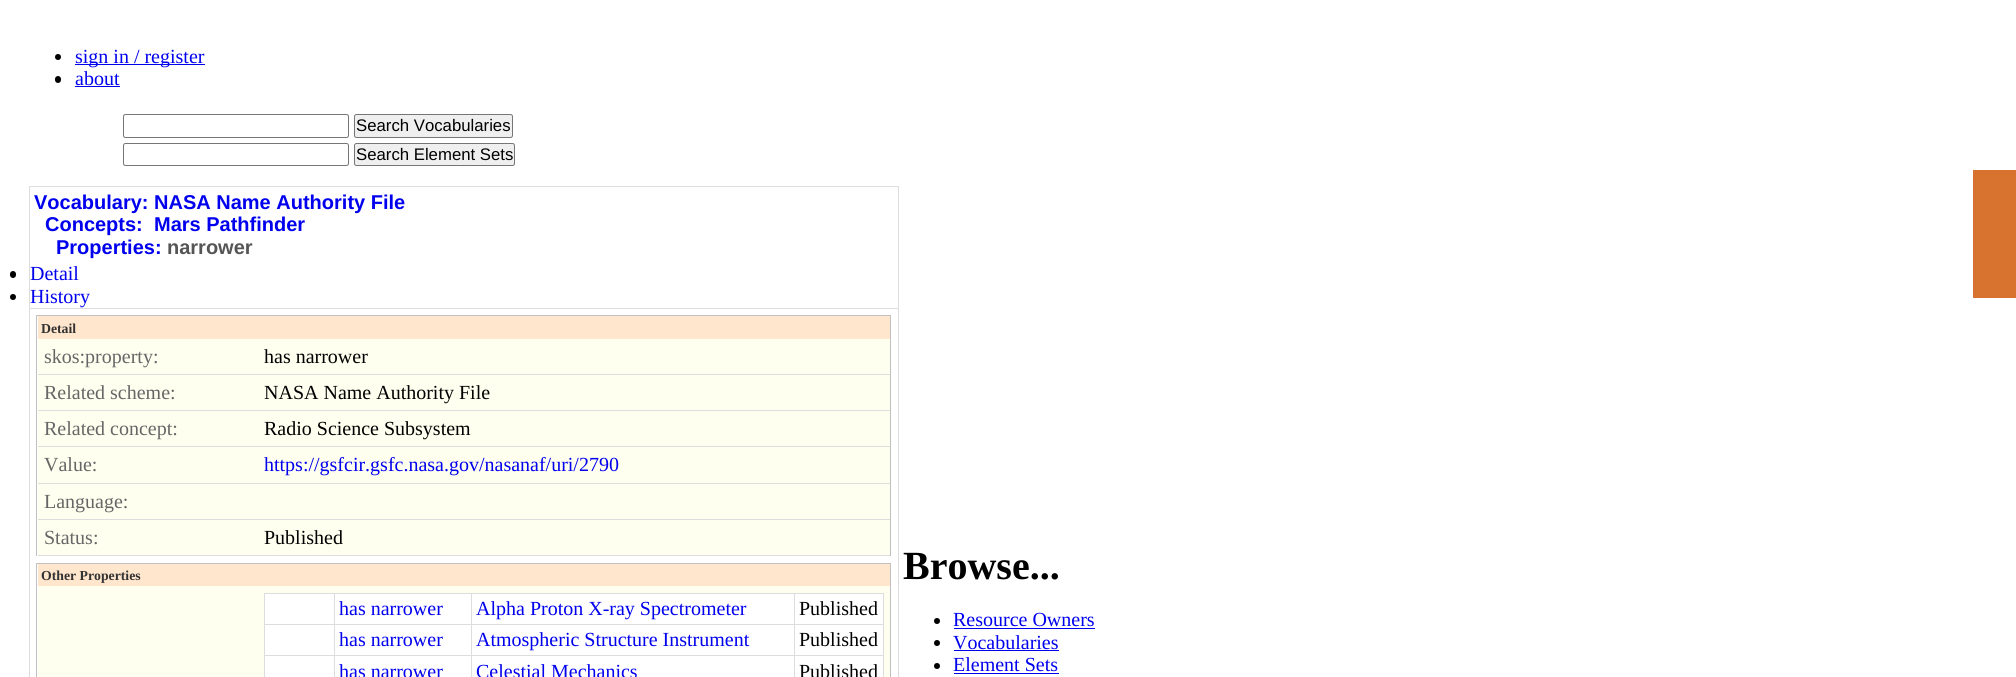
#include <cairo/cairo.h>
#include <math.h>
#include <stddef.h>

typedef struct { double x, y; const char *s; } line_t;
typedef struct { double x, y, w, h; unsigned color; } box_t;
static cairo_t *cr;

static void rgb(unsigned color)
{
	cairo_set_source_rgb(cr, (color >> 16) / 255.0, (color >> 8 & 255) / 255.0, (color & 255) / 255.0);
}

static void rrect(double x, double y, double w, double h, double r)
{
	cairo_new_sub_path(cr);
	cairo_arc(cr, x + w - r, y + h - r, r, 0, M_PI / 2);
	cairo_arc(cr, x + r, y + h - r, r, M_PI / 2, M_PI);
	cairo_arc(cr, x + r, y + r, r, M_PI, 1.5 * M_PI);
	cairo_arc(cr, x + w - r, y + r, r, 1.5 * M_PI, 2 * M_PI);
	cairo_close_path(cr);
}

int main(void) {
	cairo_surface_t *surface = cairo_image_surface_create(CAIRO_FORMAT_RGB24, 2016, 677);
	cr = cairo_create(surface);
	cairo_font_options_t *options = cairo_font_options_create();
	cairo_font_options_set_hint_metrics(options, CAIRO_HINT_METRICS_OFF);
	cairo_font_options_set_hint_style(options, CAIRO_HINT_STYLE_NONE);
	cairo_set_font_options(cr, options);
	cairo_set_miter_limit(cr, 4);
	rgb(0xffffff);
	cairo_paint(cr);
	rgb(0x000000);
	cairo_arc(cr, 58, 57, 3, 0, 2 * M_PI);
	cairo_fill(cr);
	rgb(0x0000ee);
	cairo_rectangle(cr, 75, 64, 130, 1);
	cairo_fill(cr);
	rgb(0x000000);
	rrect(55, 76, 6, 7, 3);
	cairo_fill(cr);
	rgb(0x0000ee);
	cairo_rectangle(cr, 75, 86, 45, 1);
	cairo_fill(cr);
	rrect(123.5, 114.5, 225, 23, 2);
	rgb(0x767676);
	cairo_set_line_width(cr, 1);
	cairo_stroke(cr);
	rgb(0xefefef);
	rrect(354.5, 114.5, 158, 23, 2);
	cairo_fill_preserve(cr);
	rgb(0x767676);
	cairo_stroke(cr);
	rrect(123.5, 143.5, 225, 22, 2);
	cairo_stroke(cr);
	rgb(0xefefef);
	rrect(354.5, 143.5, 160, 22, 2);
	cairo_fill_preserve(cr);
	rgb(0x767676);
	cairo_stroke(cr);
	cairo_rectangle(cr, 29.5, 186.5, 869, 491);
	rgb(0xdddddd);
	cairo_stroke(cr);
	rgb(0x000000);
	rrect(10, 271, 6, 7, 3);
	cairo_fill(cr);
	cairo_arc(cr, 13, 297, 3, 0, 2 * M_PI);
	cairo_fill(cr);
	{
		static const box_t items[] = {
			{30, 308, 868, 1, 0xdddddd},
			{36, 315, 855, 1, 0xc0c0c0},
			{890, 315, 1, 241, 0xc0c0c0},
			{36, 315, 1, 241, 0xc0c0c0},
			{38, 316, 852, 23, 0xffe6cc},
			{38, 339, 852, 35, 0xfffff0},
			{38, 374, 852, 1, 0xdddddd},
			{38, 375, 852, 35, 0xfffff0},
			{38, 410, 852, 1, 0xdddddd},
			{38, 411, 852, 72, 0xfffff0},
			{38, 446, 852, 1, 0xdddddd},
			{38, 483, 852, 1, 0xdddddd},
			{38, 484, 852, 35, 0xfffff0},
			{38, 519, 852, 1, 0xdddddd},
			{38, 520, 852, 35, 0xfffff0},
			{38, 555, 852, 1, 0xdddddd},
			{36, 563, 855, 1, 0xc0c0c0},
			{890, 563, 1, 114, 0xc0c0c0},
			{36, 563, 1, 114, 0xc0c0c0},
			{38, 564, 852, 22, 0xffe6cc},
			{38, 586, 852, 91, 0xfffff0},
			{264, 593, 620, 1, 0xdddddd},
			{264, 593, 1, 84, 0xdddddd},
			{265, 594, 69, 30, 0xffffff},
			{334, 594, 1, 83, 0xdddddd},
			{265, 624, 70, 1, 0xdddddd},
			{335, 594, 459, 30, 0xffffff},
			{471, 594, 1, 31, 0xdddddd},
			{335, 624, 138, 1, 0xdddddd},
			{794, 594, 1, 83, 0xdddddd},
			{473, 624, 322, 1, 0xdddddd},
			{795, 594, 88, 30, 0xffffff},
			{883, 594, 1, 83, 0xdddddd},
			{795, 624, 89, 1, 0xdddddd},
			{265, 625, 69, 30, 0xffffff},
			{265, 655, 70, 1, 0xdddddd},
			{335, 625, 459, 30, 0xffffff},
			{471, 625, 1, 31, 0xdddddd},
			{335, 655, 549, 1, 0xdddddd},
			{795, 625, 88, 30, 0xffffff},
			{265, 656, 69, 21, 0xffffff},
			{335, 656, 459, 21, 0xffffff},
			{471, 656, 1, 21, 0xdddddd},
			{795, 656, 88, 21, 0xffffff},
		};
		for (size_t i = 0; i < sizeof items / sizeof *items; i++) {
			rgb(items[i].color);
			cairo_rectangle(cr, items[i].x, items[i].y, items[i].w, items[i].h);
			cairo_fill(cr);
		}
	}
	rgb(0x000000);
	cairo_arc(cr, 937, 621, 3, 0, 2 * M_PI);
	cairo_fill(cr);
	rgb(0x0000ee);
	cairo_rectangle(cr, 954, 628, 141, 1);
	cairo_fill(cr);
	rgb(0x000000);
	cairo_arc(cr, 937, 643, 3, 0, 2 * M_PI);
	cairo_fill(cr);
	rgb(0x0000ee);
	cairo_rectangle(cr, 954, 650, 105, 1);
	cairo_fill(cr);
	rgb(0x000000);
	cairo_arc(cr, 937, 666, 3, 0, 2 * M_PI);
	cairo_fill(cr);
	rgb(0x0000ee);
	cairo_rectangle(cr, 954, 673, 105, 1);
	cairo_fill(cr);
	rgb(0xd8732f);
	cairo_rectangle(cr, 1973, 170, 43, 128);
	cairo_fill(cr);
	cairo_select_font_face(cr, "Liberation Serif", CAIRO_FONT_SLANT_NORMAL, CAIRO_FONT_WEIGHT_NORMAL);
	cairo_set_font_size(cr, 20);
	rgb(0x0000ee);
	cairo_move_to(cr, 75, 63);
	cairo_show_text(cr, "sign in / register");
	cairo_move_to(cr, 75, 85);
	cairo_show_text(cr, "about");
	cairo_select_font_face(cr, "Liberation Sans", CAIRO_FONT_SLANT_NORMAL, CAIRO_FONT_WEIGHT_NORMAL);
	cairo_set_font_size(cr, 16.75);
	rgb(0x000000);
	cairo_move_to(cr, 356, 131);
	cairo_show_text(cr, "Search Vocabularies");
	cairo_move_to(cr, 356, 160);
	cairo_show_text(cr, "Search Element Sets");
	cairo_select_font_face(cr, "Liberation Sans", CAIRO_FONT_SLANT_NORMAL, CAIRO_FONT_WEIGHT_BOLD);
	cairo_set_font_size(cr, 20);
	rgb(0x0000ee);
	{
		static const line_t items[] = {
			{34, 209, "Vocabulary: NASA Name Authority File"},
			{45, 231, "Concepts:"},
			{154, 231, "Mars Pathfinder"},
			{56, 254, "Properties:"},
		};
		for (size_t i = 0; i < sizeof items / sizeof *items; i++) {
			cairo_move_to(cr, items[i].x, items[i].y);
			cairo_show_text(cr, items[i].s);
		}
	}
	rgb(0x555555);
	cairo_move_to(cr, 167, 254);
	cairo_show_text(cr, "narrower");
	cairo_select_font_face(cr, "Liberation Serif", CAIRO_FONT_SLANT_NORMAL, CAIRO_FONT_WEIGHT_NORMAL);
	rgb(0x0000ee);
	cairo_move_to(cr, 30, 280);
	cairo_show_text(cr, "Detail");
	cairo_move_to(cr, 30, 303);
	cairo_show_text(cr, "History");
	cairo_select_font_face(cr, "Liberation Serif", CAIRO_FONT_SLANT_NORMAL, CAIRO_FONT_WEIGHT_BOLD);
	cairo_set_font_size(cr, 13.75);
	rgb(0x333333);
	cairo_move_to(cr, 41, 333);
	cairo_show_text(cr, "Detail");
	cairo_select_font_face(cr, "Liberation Serif", CAIRO_FONT_SLANT_NORMAL, CAIRO_FONT_WEIGHT_NORMAL);
	cairo_set_font_size(cr, 20);
	rgb(0x666666);
	cairo_move_to(cr, 44, 363);
	cairo_show_text(cr, "skos:property:");
	rgb(0x000000);
	cairo_move_to(cr, 264, 363);
	cairo_show_text(cr, "has narrower");
	rgb(0x666666);
	cairo_move_to(cr, 44, 399);
	cairo_show_text(cr, "Related scheme:");
	rgb(0x000000);
	cairo_move_to(cr, 264, 399);
	cairo_show_text(cr, "NASA Name Authority File");
	rgb(0x666666);
	cairo_move_to(cr, 44, 435);
	cairo_show_text(cr, "Related concept:");
	rgb(0x000000);
	cairo_move_to(cr, 264, 435);
	cairo_show_text(cr, "Radio Science Subsystem");
	rgb(0x666666);
	cairo_move_to(cr, 44, 471);
	cairo_show_text(cr, "Value:");
	rgb(0x0000ee);
	cairo_move_to(cr, 264, 471);
	cairo_show_text(cr, "https://gsfcir.gsfc.nasa.gov/nasanaf/uri/2790");
	rgb(0x666666);
	cairo_move_to(cr, 44, 508);
	cairo_show_text(cr, "Language:");
	cairo_move_to(cr, 44, 544);
	cairo_show_text(cr, "Status:");
	rgb(0x000000);
	cairo_move_to(cr, 264, 544);
	cairo_show_text(cr, "Published");
	cairo_select_font_face(cr, "Liberation Serif", CAIRO_FONT_SLANT_NORMAL, CAIRO_FONT_WEIGHT_BOLD);
	cairo_set_font_size(cr, 13.75);
	rgb(0x333333);
	cairo_move_to(cr, 41, 580);
	cairo_show_text(cr, "Other Properties");
	cairo_select_font_face(cr, "Liberation Serif", CAIRO_FONT_SLANT_NORMAL, CAIRO_FONT_WEIGHT_NORMAL);
	cairo_set_font_size(cr, 20);
	rgb(0x0000ee);
	cairo_move_to(cr, 339, 615);
	cairo_show_text(cr, "has narrower");
	cairo_move_to(cr, 476, 615);
	cairo_show_text(cr, "Alpha Proton X-ray Spectrometer");
	rgb(0x000000);
	cairo_move_to(cr, 799, 615);
	cairo_show_text(cr, "Published");
	rgb(0x0000ee);
	cairo_move_to(cr, 339, 646);
	cairo_show_text(cr, "has narrower");
	cairo_move_to(cr, 476, 646);
	cairo_show_text(cr, "Atmospheric Structure Instrument");
	rgb(0x000000);
	cairo_move_to(cr, 799, 646);
	cairo_show_text(cr, "Published");
	rgb(0x0000ee);
	cairo_move_to(cr, 339, 678);
	cairo_show_text(cr, "has narrower");
	cairo_move_to(cr, 476, 678);
	cairo_show_text(cr, "Celestial Mechanics");
	rgb(0x000000);
	cairo_move_to(cr, 799, 678);
	cairo_show_text(cr, "Published");
	cairo_select_font_face(cr, "Liberation Serif", CAIRO_FONT_SLANT_NORMAL, CAIRO_FONT_WEIGHT_BOLD);
	cairo_set_font_size(cr, 40);
	cairo_move_to(cr, 903, 579);
	cairo_show_text(cr, "Browse...");
	cairo_select_font_face(cr, "Liberation Serif", CAIRO_FONT_SLANT_NORMAL, CAIRO_FONT_WEIGHT_NORMAL);
	cairo_set_font_size(cr, 20);
	rgb(0x0000ee);
	{
		static const line_t items[] = {
			{953, 626, "Resource Owners"},
			{953, 649, "Vocabularies"},
			{953, 671, "Element Sets"},
		};
		for (size_t i = 0; i < sizeof items / sizeof *items; i++) {
			cairo_move_to(cr, items[i].x, items[i].y);
			cairo_show_text(cr, items[i].s);
		}
	}
	cairo_surface_write_to_png(surface, "page.png");
	cairo_font_options_destroy(options);
	cairo_destroy(cr);
	cairo_surface_destroy(surface);
	return 0;
}
